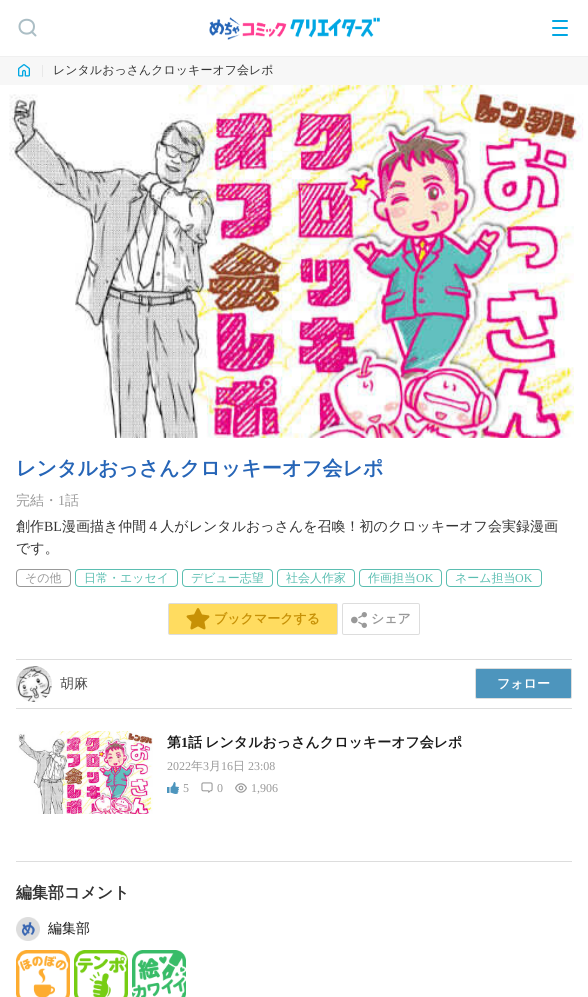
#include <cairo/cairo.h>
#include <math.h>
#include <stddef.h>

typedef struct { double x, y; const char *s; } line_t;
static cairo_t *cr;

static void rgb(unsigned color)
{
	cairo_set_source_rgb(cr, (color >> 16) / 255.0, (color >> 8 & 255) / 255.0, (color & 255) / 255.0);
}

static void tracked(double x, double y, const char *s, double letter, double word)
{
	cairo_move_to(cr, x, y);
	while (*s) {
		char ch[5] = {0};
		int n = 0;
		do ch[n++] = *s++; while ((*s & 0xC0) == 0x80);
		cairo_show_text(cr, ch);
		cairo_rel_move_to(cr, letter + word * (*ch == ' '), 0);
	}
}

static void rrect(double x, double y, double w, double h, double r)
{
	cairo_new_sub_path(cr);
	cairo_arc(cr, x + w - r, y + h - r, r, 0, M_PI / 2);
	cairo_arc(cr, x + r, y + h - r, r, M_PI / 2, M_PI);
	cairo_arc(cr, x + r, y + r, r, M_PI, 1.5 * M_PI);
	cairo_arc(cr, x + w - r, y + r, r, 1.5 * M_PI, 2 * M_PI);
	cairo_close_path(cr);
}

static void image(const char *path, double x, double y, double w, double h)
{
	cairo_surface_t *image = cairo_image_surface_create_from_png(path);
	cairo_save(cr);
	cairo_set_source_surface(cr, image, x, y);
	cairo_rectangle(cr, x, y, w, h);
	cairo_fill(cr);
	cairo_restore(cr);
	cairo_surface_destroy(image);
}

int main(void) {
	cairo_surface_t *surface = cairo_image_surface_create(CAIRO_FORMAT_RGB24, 588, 997);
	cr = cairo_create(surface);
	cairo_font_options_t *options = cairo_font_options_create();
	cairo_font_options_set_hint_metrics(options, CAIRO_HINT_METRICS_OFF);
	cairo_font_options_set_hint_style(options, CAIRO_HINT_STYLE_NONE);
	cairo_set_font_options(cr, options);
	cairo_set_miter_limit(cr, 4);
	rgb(0xffffff);
	cairo_paint(cr);
	rgb(0xf0f0f0);
	cairo_rectangle(cr, 0, 56, 588, 1);
	cairo_fill(cr);
	cairo_new_path(cr);
	cairo_move_to(cr, 35.5, 35.5);
	cairo_line_to(cr, 31.5, 31.5);
	cairo_move_to(cr, 34, 26.5);
	cairo_curve_to(cr, 34, 36, 19.5, 36, 19.5, 26.5);
	cairo_curve_to(cr, 19.5, 17.5, 34, 17.5, 34, 26.5);
	cairo_close_path(cr);
	rgb(0xabbec5);
	cairo_set_line_cap(cr, CAIRO_LINE_CAP_ROUND);
	cairo_stroke(cr);
	image("img/1.png", 209, 17, 171, 23);
	rgb(0x00a7e3);
	rrect(552, 20, 16, 2, 1);
	cairo_fill(cr);
	rrect(552, 27, 16, 2, 1);
	cairo_fill(cr);
	rrect(552, 34, 16, 2, 1);
	cairo_fill(cr);
	rgb(0xf7f7f7);
	cairo_rectangle(cr, 0, 57, 588, 28);
	cairo_fill(cr);
	image("img/2.png", 18, 64, 12, 13);
	rgb(0xe8e8e8);
	cairo_rectangle(cr, 42, 65, 1, 12);
	cairo_fill(cr);
	image("img/3.png", 9, 85, 575, 353);
	image("img/4.png", 9, 85, 574, 353);
	rrect(16.5, 569.5, 54, 17, 3.5);
	rgb(0x999999);
	cairo_set_line_width(cr, 1);
	cairo_set_line_cap(cr, CAIRO_LINE_CAP_BUTT);
	cairo_stroke(cr);
	rrect(75.5, 569.5, 102, 17, 3.5);
	rgb(0x5bbeb1);
	cairo_stroke(cr);
	rrect(182.5, 569.5, 90, 17, 3.5);
	cairo_stroke(cr);
	rrect(277.5, 569.5, 77, 17, 3.5);
	cairo_stroke(cr);
	rrect(359.5, 569.5, 82, 17, 3.5);
	cairo_stroke(cr);
	rrect(446.5, 569.5, 95, 17, 3.5);
	cairo_stroke(cr);
	rgb(0xffdc60);
	rrect(168.5, 603.5, 169, 31, 1.5);
	cairo_fill_preserve(cr);
	rgb(0xdddddd);
	cairo_stroke(cr);
	image("img/5.png", 186, 608, 24, 22);
	rrect(342.5, 603.5, 77, 31, 1.5);
	cairo_stroke(cr);
	image("img/6.png", 351, 612, 16, 16);
	cairo_rectangle(cr, 16, 659, 556, 1);
	cairo_fill(cr);
	cairo_rectangle(cr, 16, 708, 556, 1);
	cairo_fill(cr);
	image("img/7.png", 16, 666, 36, 36);
	rgb(0x4d95bd);
	rrect(475.5, 668.5, 96, 30, 1.5);
	cairo_fill_preserve(cr);
	rgb(0xdddddd);
	cairo_stroke(cr);
	image("img/8.png", 18, 731, 135, 83);
	image("img/9.png", 167, 782, 12, 12);
	image("img/10.png", 201, 782, 12, 11);
	image("img/11.png", 235, 783, 12, 10);
	cairo_rectangle(cr, 16, 861, 556, 1);
	cairo_fill(cr);
	image("img/12.png", 16, 917, 24, 24);
	image("img/13.png", 16, 950, 54, 47);
	image("img/14.png", 74, 950, 54, 47);
	image("img/15.png", 132, 950, 54, 47);
	cairo_select_font_face(cr, "WenQuanYi Zen Hei Medium", CAIRO_FONT_SLANT_NORMAL, CAIRO_FONT_WEIGHT_NORMAL);
	cairo_set_font_size(cr, 12);
	rgb(0x333333);
	cairo_move_to(cr, 53, 74);
	cairo_show_text(cr, "レンタルおっさんクロッキーオフ会レポ");
	cairo_select_font_face(cr, "WenQuanYi Zen Hei", CAIRO_FONT_SLANT_NORMAL, CAIRO_FONT_WEIGHT_BOLD);
	cairo_set_font_size(cr, 20);
	rgb(0x2665b7);
	cairo_move_to(cr, 16, 475);
	cairo_show_text(cr, "レンタルおっさんクロッキーオフ会レポ");
	cairo_select_font_face(cr, "WenQuanYi Zen Hei Medium", CAIRO_FONT_SLANT_NORMAL, CAIRO_FONT_WEIGHT_NORMAL);
	cairo_set_font_size(cr, 14);
	rgb(0x999999);
	cairo_move_to(cr, 16, 505);
	cairo_show_text(cr, "完結・");
	cairo_select_font_face(cr, "Liberation Serif", CAIRO_FONT_SLANT_NORMAL, CAIRO_FONT_WEIGHT_NORMAL);
	cairo_move_to(cr, 58, 505);
	cairo_show_text(cr, "1");
	cairo_select_font_face(cr, "WenQuanYi Zen Hei Medium", CAIRO_FONT_SLANT_NORMAL, CAIRO_FONT_WEIGHT_NORMAL);
	cairo_move_to(cr, 65, 505);
	cairo_show_text(cr, "話");
	rgb(0x333333);
	cairo_move_to(cr, 16, 531);
	cairo_show_text(cr, "創作");
	cairo_select_font_face(cr, "Liberation Serif", CAIRO_FONT_SLANT_NORMAL, CAIRO_FONT_WEIGHT_NORMAL);
	cairo_move_to(cr, 44, 531);
	cairo_show_text(cr, "BL");
	cairo_select_font_face(cr, "WenQuanYi Zen Hei Medium", CAIRO_FONT_SLANT_NORMAL, CAIRO_FONT_WEIGHT_NORMAL);
	cairo_move_to(cr, 62, 531);
	cairo_show_text(cr, "漫画描き仲間４人がレンタルおっさんを召喚！初のクロッキーオフ会実録漫画");
	cairo_move_to(cr, 16, 553);
	cairo_show_text(cr, "です。");
	cairo_set_font_size(cr, 12);
	rgb(0x999999);
	cairo_move_to(cr, 25, 582);
	cairo_show_text(cr, "その他");
	rgb(0x5bbeb1);
	{
		static const line_t items[] = {
			{84, 582, "日常・エッセイ"},
			{191, 582, "デビュー志望"},
			{286, 582, "社会人作家"},
			{368, 582, "作画担当"},
		};
		for (size_t i = 0; i < sizeof items / sizeof *items; i++) {
			cairo_move_to(cr, items[i].x, items[i].y);
			cairo_show_text(cr, items[i].s);
		}
	}
	cairo_select_font_face(cr, "Liberation Serif", CAIRO_FONT_SLANT_NORMAL, CAIRO_FONT_WEIGHT_NORMAL);
	cairo_move_to(cr, 416, 582);
	cairo_show_text(cr, "OK");
	cairo_select_font_face(cr, "WenQuanYi Zen Hei Medium", CAIRO_FONT_SLANT_NORMAL, CAIRO_FONT_WEIGHT_NORMAL);
	cairo_move_to(cr, 455, 582);
	cairo_show_text(cr, "ネーム担当");
	cairo_select_font_face(cr, "Liberation Serif", CAIRO_FONT_SLANT_NORMAL, CAIRO_FONT_WEIGHT_NORMAL);
	cairo_move_to(cr, 515, 582);
	cairo_show_text(cr, "OK");
	cairo_select_font_face(cr, "WenQuanYi Zen Hei", CAIRO_FONT_SLANT_NORMAL, CAIRO_FONT_WEIGHT_BOLD);
	cairo_set_font_size(cr, 13);
	rgb(0xc79106);
	cairo_move_to(cr, 214, 623);
	cairo_show_text(cr, "ブックマークする");
	rgb(0x999999);
	cairo_move_to(cr, 371, 623);
	cairo_show_text(cr, "シェア");
	cairo_save(cr);
	cairo_rectangle(cr, 60, 677, 28, 14);
	cairo_clip(cr);
	cairo_select_font_face(cr, "WenQuanYi Zen Hei Medium", CAIRO_FONT_SLANT_NORMAL, CAIRO_FONT_WEIGHT_NORMAL);
	cairo_set_font_size(cr, 14);
	rgb(0x4d4d4d);
	cairo_move_to(cr, 60, 688);
	cairo_show_text(cr, "胡麻");
	cairo_restore(cr);
	rgb(0xffffff);
	cairo_move_to(cr, 497, 688);
	cairo_show_text(cr, "フォロー");
	cairo_set_font_size(cr, 14);
	rgb(0x1a1a1a);
	cairo_move_to(cr, 167, 747);
	cairo_show_text(cr, "第");
	cairo_select_font_face(cr, "Liberation Serif", CAIRO_FONT_SLANT_NORMAL, CAIRO_FONT_WEIGHT_BOLD);
	cairo_move_to(cr, 181, 747);
	cairo_show_text(cr, "1");
	cairo_select_font_face(cr, "WenQuanYi Zen Hei", CAIRO_FONT_SLANT_NORMAL, CAIRO_FONT_WEIGHT_BOLD);
	tracked(188, 747, "話 レンタルおっさんクロッキーオフ会レポ", 0, -1);
	cairo_select_font_face(cr, "Liberation Serif", CAIRO_FONT_SLANT_NORMAL, CAIRO_FONT_WEIGHT_NORMAL);
	cairo_set_font_size(cr, 12);
	rgb(0x999999);
	cairo_move_to(cr, 167, 770);
	cairo_show_text(cr, "2022");
	cairo_select_font_face(cr, "WenQuanYi Zen Hei Medium", CAIRO_FONT_SLANT_NORMAL, CAIRO_FONT_WEIGHT_NORMAL);
	cairo_move_to(cr, 191, 770);
	cairo_show_text(cr, "年");
	cairo_select_font_face(cr, "Liberation Serif", CAIRO_FONT_SLANT_NORMAL, CAIRO_FONT_WEIGHT_NORMAL);
	cairo_move_to(cr, 203, 770);
	cairo_show_text(cr, "3");
	cairo_select_font_face(cr, "WenQuanYi Zen Hei Medium", CAIRO_FONT_SLANT_NORMAL, CAIRO_FONT_WEIGHT_NORMAL);
	cairo_move_to(cr, 209, 770);
	cairo_show_text(cr, "月");
	cairo_select_font_face(cr, "Liberation Serif", CAIRO_FONT_SLANT_NORMAL, CAIRO_FONT_WEIGHT_NORMAL);
	cairo_move_to(cr, 221, 770);
	cairo_show_text(cr, "16");
	cairo_select_font_face(cr, "WenQuanYi Zen Hei Medium", CAIRO_FONT_SLANT_NORMAL, CAIRO_FONT_WEIGHT_NORMAL);
	cairo_move_to(cr, 233, 770);
	cairo_show_text(cr, "日");
	cairo_select_font_face(cr, "Liberation Serif", CAIRO_FONT_SLANT_NORMAL, CAIRO_FONT_WEIGHT_NORMAL);
	{
		static const line_t items[] = {
			{248, 770, "23:08"},
			{183, 792, "5"},
			{217, 792, "0"},
			{251, 792, "1,906"},
		};
		for (size_t i = 0; i < sizeof items / sizeof *items; i++) {
			cairo_move_to(cr, items[i].x, items[i].y);
			cairo_show_text(cr, items[i].s);
		}
	}
	cairo_select_font_face(cr, "WenQuanYi Zen Hei", CAIRO_FONT_SLANT_NORMAL, CAIRO_FONT_WEIGHT_BOLD);
	cairo_set_font_size(cr, 16);
	rgb(0x333333);
	cairo_move_to(cr, 16, 898);
	cairo_show_text(cr, "編集部コメント");
	cairo_select_font_face(cr, "WenQuanYi Zen Hei Medium", CAIRO_FONT_SLANT_NORMAL, CAIRO_FONT_WEIGHT_NORMAL);
	cairo_set_font_size(cr, 14);
	rgb(0x1a1a1a);
	cairo_move_to(cr, 48, 933);
	cairo_show_text(cr, "編集部");
	cairo_surface_write_to_png(surface, "page.png");
	cairo_font_options_destroy(options);
	cairo_destroy(cr);
	cairo_surface_destroy(surface);
	return 0;
}
